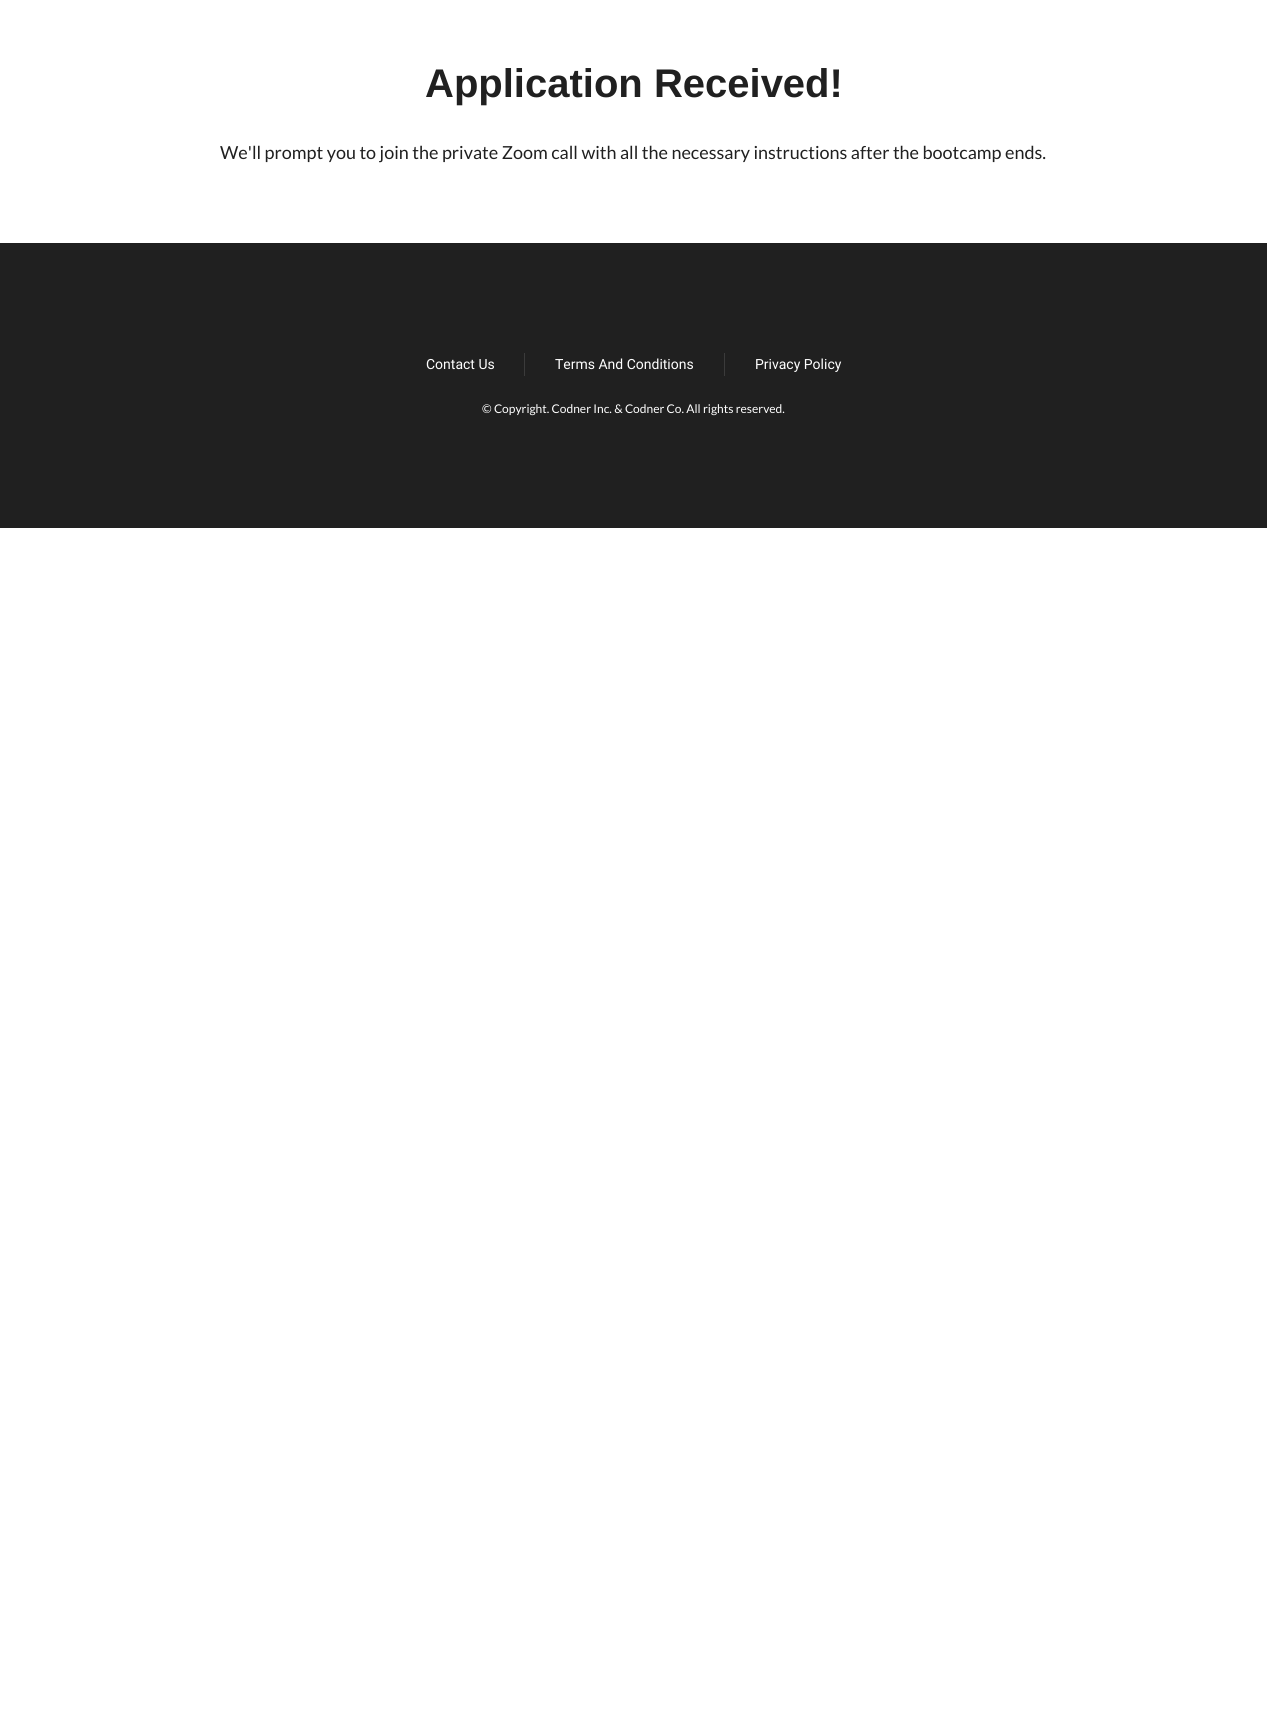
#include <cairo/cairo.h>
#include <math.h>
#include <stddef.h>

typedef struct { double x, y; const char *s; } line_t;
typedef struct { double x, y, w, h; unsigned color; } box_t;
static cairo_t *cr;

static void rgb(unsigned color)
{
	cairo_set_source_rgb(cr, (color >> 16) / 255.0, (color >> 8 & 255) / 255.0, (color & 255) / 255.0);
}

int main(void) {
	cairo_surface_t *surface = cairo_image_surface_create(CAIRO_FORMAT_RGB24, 1267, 1711);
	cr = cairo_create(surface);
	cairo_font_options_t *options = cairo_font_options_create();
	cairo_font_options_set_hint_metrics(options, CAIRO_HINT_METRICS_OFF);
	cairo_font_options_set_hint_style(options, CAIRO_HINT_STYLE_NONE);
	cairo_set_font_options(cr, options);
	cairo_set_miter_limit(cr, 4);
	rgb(0xffffff);
	cairo_paint(cr);
	{
		static const box_t items[] = {
			{0, 243, 1267, 285, 0x202020},
			{524, 353, 1, 23, 0x3b3b3b},
			{724, 353, 1, 23, 0x3b3b3b},
		};
		for (size_t i = 0; i < sizeof items / sizeof *items; i++) {
			rgb(items[i].color);
			cairo_rectangle(cr, items[i].x, items[i].y, items[i].w, items[i].h);
			cairo_fill(cr);
		}
	}
	cairo_select_font_face(cr, "Liberation Sans", CAIRO_FONT_SLANT_NORMAL, CAIRO_FONT_WEIGHT_BOLD);
	cairo_set_font_size(cr, 40);
	rgb(0x202020);
	cairo_move_to(cr, 425, 97);
	cairo_show_text(cr, "Application Received!");
	cairo_select_font_face(cr, "Lato", CAIRO_FONT_SLANT_NORMAL, CAIRO_FONT_WEIGHT_NORMAL);
	cairo_set_font_size(cr, 18);
	cairo_move_to(cr, 220, 159);
	cairo_show_text(cr, "We'll prompt you to join the private Zoom call with all the necessary instructions after the bootcamp ends.");
	cairo_select_font_face(cr, "Roboto", CAIRO_FONT_SLANT_NORMAL, CAIRO_FONT_WEIGHT_NORMAL);
	cairo_set_font_size(cr, 14);
	rgb(0xffffff);
	{
		static const line_t items[] = {
			{426, 369, "Contact Us"},
			{555, 369, "Terms And Conditions"},
			{755, 369, "Privacy Policy"},
		};
		for (size_t i = 0; i < sizeof items / sizeof *items; i++) {
			cairo_move_to(cr, items[i].x, items[i].y);
			cairo_show_text(cr, items[i].s);
		}
	}
	cairo_select_font_face(cr, "Lato", CAIRO_FONT_SLANT_NORMAL, CAIRO_FONT_WEIGHT_NORMAL);
	cairo_set_font_size(cr, 12);
	cairo_move_to(cr, 482, 413);
	cairo_show_text(cr, "© Copyright. Codner Inc. & Codner Co. All rights reserved.");
	cairo_surface_write_to_png(surface, "page.png");
	cairo_font_options_destroy(options);
	cairo_destroy(cr);
	cairo_surface_destroy(surface);
	return 0;
}
